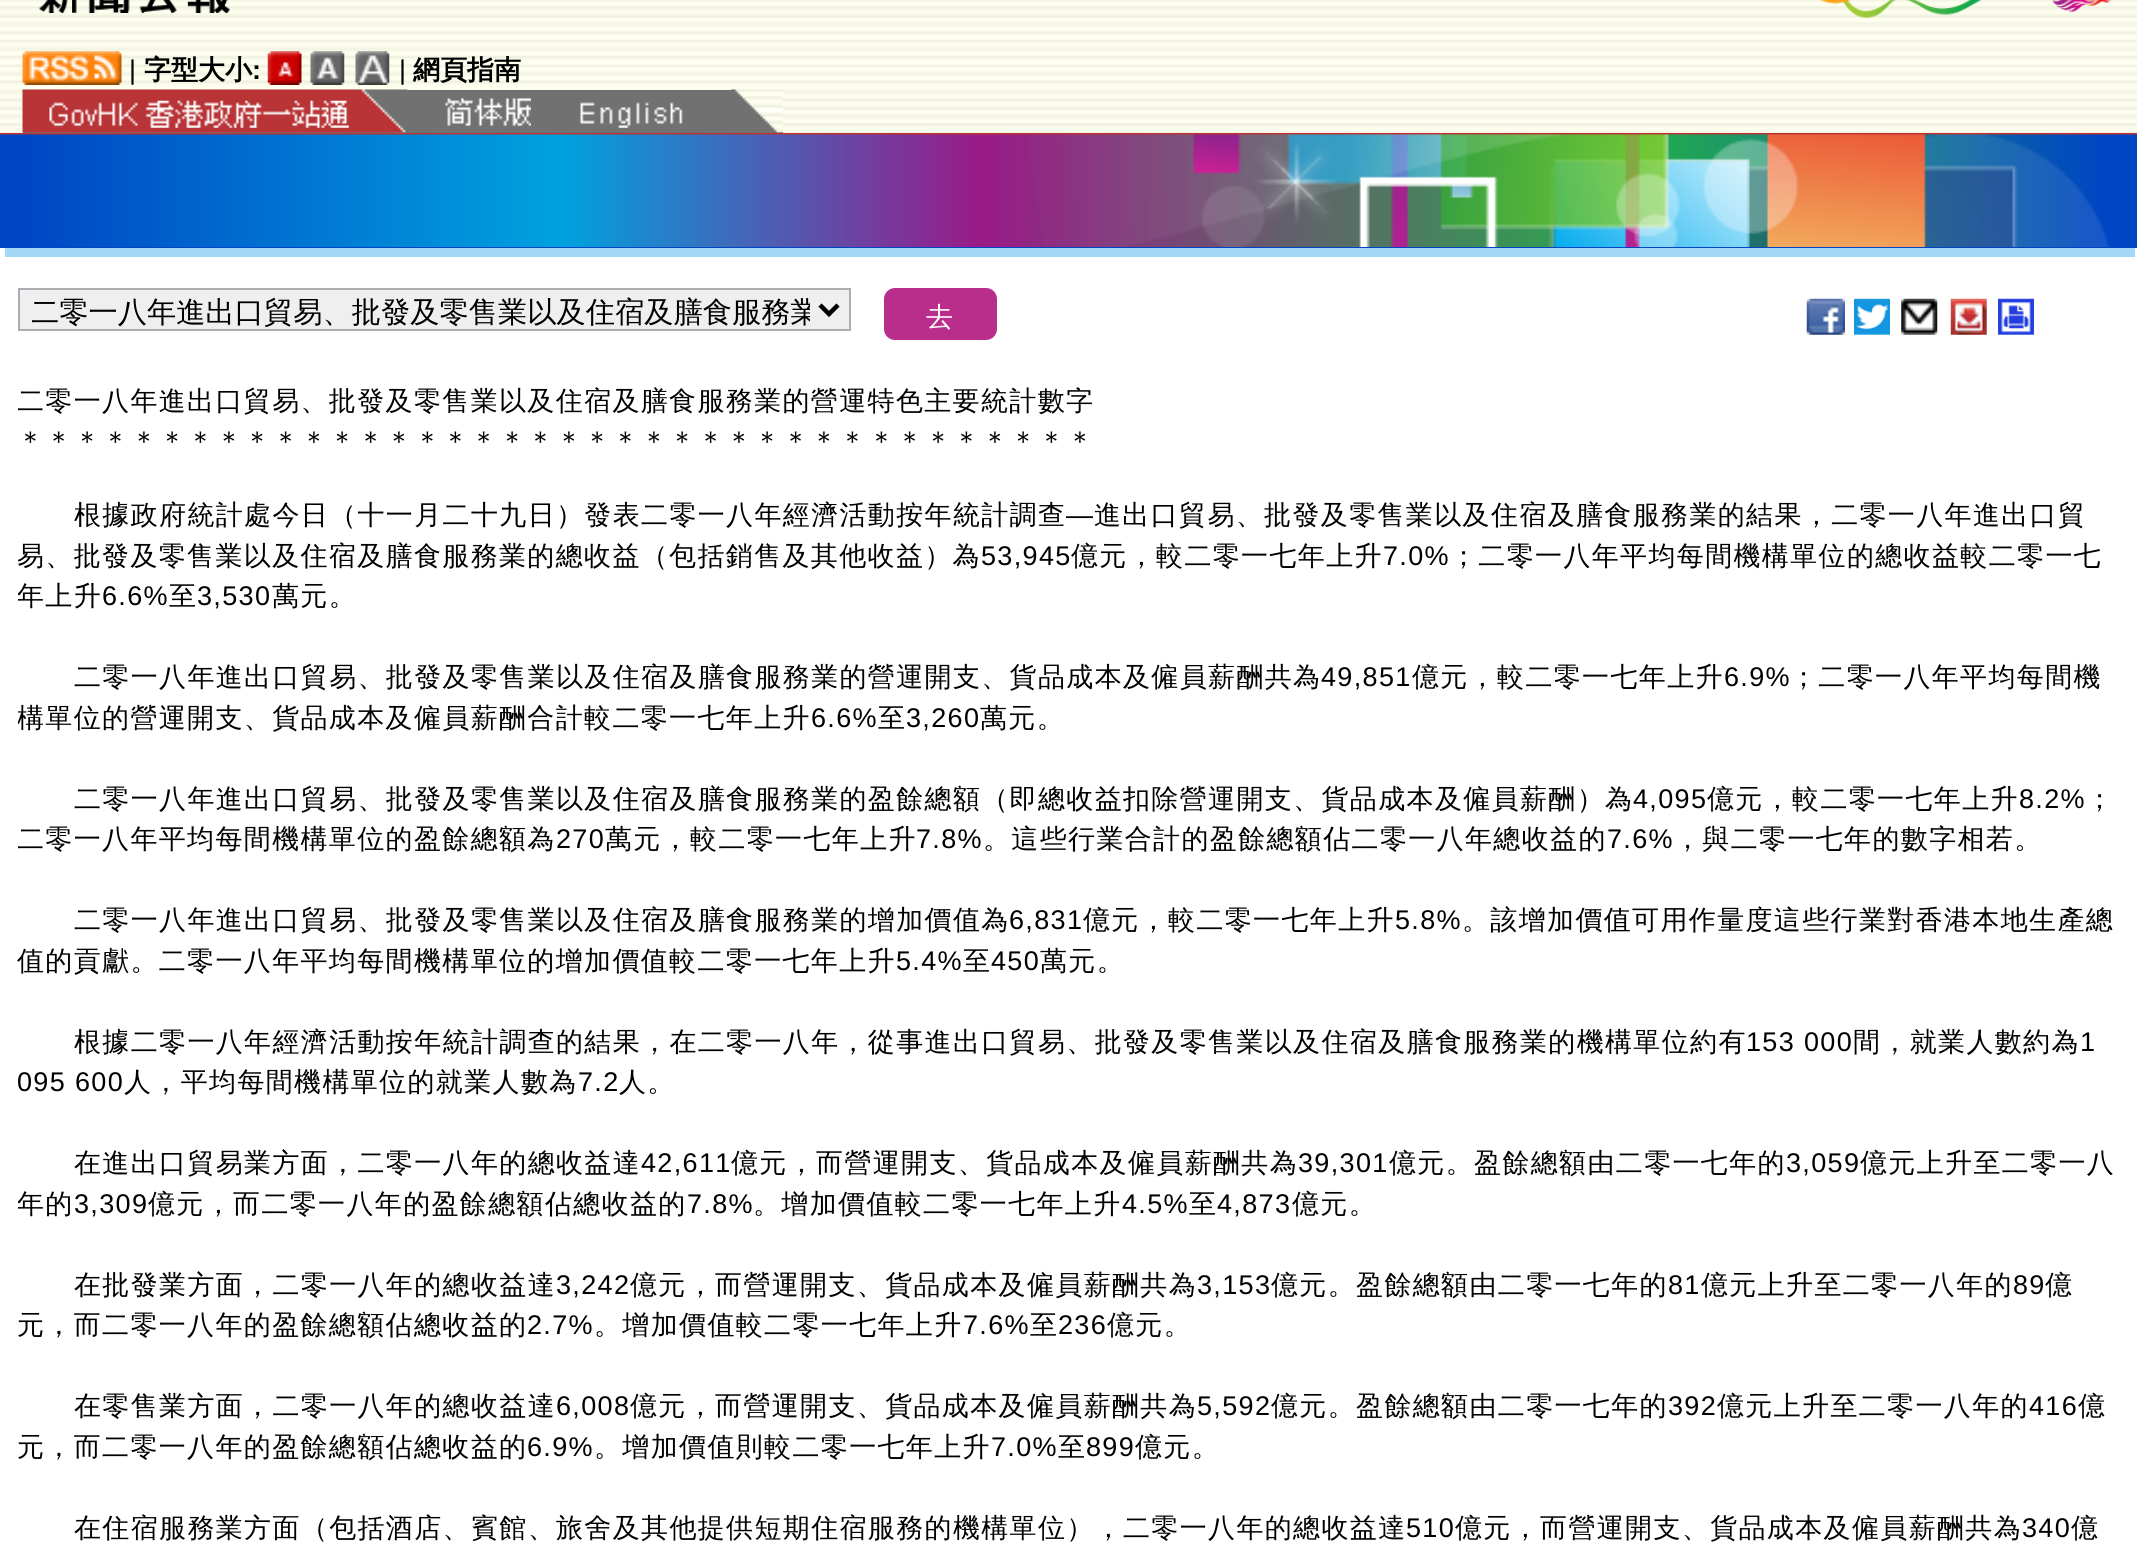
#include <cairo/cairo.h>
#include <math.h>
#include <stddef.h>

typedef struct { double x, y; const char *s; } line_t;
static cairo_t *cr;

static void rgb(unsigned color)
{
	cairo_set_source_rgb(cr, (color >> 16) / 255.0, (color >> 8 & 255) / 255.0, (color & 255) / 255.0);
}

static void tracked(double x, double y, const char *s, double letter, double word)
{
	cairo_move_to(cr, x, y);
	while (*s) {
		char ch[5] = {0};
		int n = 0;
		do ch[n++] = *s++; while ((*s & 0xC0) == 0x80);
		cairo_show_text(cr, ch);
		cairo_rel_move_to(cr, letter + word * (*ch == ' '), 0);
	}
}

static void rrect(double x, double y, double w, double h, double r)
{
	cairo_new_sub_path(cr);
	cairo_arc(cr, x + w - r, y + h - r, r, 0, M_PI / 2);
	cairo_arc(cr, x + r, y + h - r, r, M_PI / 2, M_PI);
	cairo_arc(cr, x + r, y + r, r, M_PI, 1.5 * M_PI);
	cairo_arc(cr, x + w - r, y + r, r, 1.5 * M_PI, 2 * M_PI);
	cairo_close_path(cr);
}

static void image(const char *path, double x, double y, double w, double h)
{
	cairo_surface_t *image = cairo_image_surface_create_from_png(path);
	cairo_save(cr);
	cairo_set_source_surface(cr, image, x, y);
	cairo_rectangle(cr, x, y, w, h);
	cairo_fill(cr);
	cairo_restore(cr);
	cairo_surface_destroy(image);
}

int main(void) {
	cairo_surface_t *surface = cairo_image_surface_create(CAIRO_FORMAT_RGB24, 2137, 1562);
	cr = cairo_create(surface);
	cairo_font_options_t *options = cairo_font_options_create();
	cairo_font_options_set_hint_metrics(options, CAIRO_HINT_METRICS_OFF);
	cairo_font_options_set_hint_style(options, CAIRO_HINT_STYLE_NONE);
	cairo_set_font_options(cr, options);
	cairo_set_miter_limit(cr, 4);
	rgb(0xffffff);
	cairo_paint(cr);
	image("img/1.png", 0, 0, 2137, 133);
	rgb(0xbb3333);
	cairo_rectangle(cr, 0, 133, 2137, 2);
	cairo_fill(cr);
	image("img/2.png", 39, 0, 191, 13);
	image("img/3.png", 1819, 0, 293, 18);
	image("img/4.png", 22, 51, 100, 34);
	image("img/5.png", 267, 51, 35, 34);
	image("img/6.png", 310, 51, 35, 34);
	image("img/7.png", 355, 51, 35, 34);
	rgb(0x717171);
	cairo_rectangle(cr, 23, 90, 760, 43);
	cairo_fill(cr);
	image("img/8.png", 22, 89, 386, 44);
	image("img/9.png", 49, 100, 300, 28);
	image("img/10.png", 445, 98, 86, 29);
	image("img/11.png", 731, 89, 52, 44);
	image("img/12.png", 580, 102, 103, 26);
	rgb(0x0046c4);
	cairo_rectangle(cr, 0, 247, 2137, 1);
	cairo_fill(cr);
	image("img/13.png", 0, 134, 2137, 113);
	rgb(0xa3d8f7);
	cairo_rectangle(cr, 5, 248, 2130, 9);
	cairo_fill(cr);
	rgb(0xefefef);
	cairo_rectangle(cr, 19, 289, 831, 41);
	cairo_fill_preserve(cr);
	rgb(0xabadb3);
	cairo_stroke(cr);
	cairo_new_path(cr);
	cairo_move_to(cr, 820, 305);
	cairo_line_to(cr, 829, 314);
	cairo_line_to(cr, 838, 305);
	rgb(0x000000);
	cairo_set_line_width(cr, 4.5);
	cairo_stroke(cr);
	rgb(0xb82e8a);
	rrect(884, 288, 113, 52, 11);
	cairo_fill(cr);
	image("img/14.png", 1806, 298, 39, 37);
	image("img/15.png", 1854, 298, 36, 37);
	image("img/16.png", 1901, 298, 37, 37);
	image("img/17.png", 1950, 298, 37, 37);
	image("img/18.png", 1998, 298, 36, 37);
	cairo_select_font_face(cr, "Liberation Sans", CAIRO_FONT_SLANT_NORMAL, CAIRO_FONT_WEIGHT_NORMAL);
	cairo_set_font_size(cr, 27);
	rgb(0x000000);
	cairo_move_to(cr, 129, 79);
	cairo_show_text(cr, "|");
	cairo_select_font_face(cr, "WenQuanYi Zen Hei", CAIRO_FONT_SLANT_NORMAL, CAIRO_FONT_WEIGHT_BOLD);
	cairo_move_to(cr, 144, 79);
	cairo_show_text(cr, "字型大小");
	cairo_select_font_face(cr, "Liberation Sans", CAIRO_FONT_SLANT_NORMAL, CAIRO_FONT_WEIGHT_BOLD);
	cairo_move_to(cr, 252, 79);
	cairo_show_text(cr, ":");
	cairo_select_font_face(cr, "Liberation Sans", CAIRO_FONT_SLANT_NORMAL, CAIRO_FONT_WEIGHT_NORMAL);
	cairo_move_to(cr, 399, 79);
	cairo_show_text(cr, "|");
	cairo_select_font_face(cr, "WenQuanYi Zen Hei", CAIRO_FONT_SLANT_NORMAL, CAIRO_FONT_WEIGHT_BOLD);
	cairo_move_to(cr, 413, 79);
	cairo_show_text(cr, "網頁指南");
	cairo_save(cr);
	cairo_rectangle(cr, 32, 293, 778, 38);
	cairo_clip(cr);
	cairo_select_font_face(cr, "WenQuanYi Zen Hei Medium", CAIRO_FONT_SLANT_NORMAL, CAIRO_FONT_WEIGHT_NORMAL);
	cairo_set_font_size(cr, 29.25);
	cairo_move_to(cr, 30, 322);
	cairo_show_text(cr, "二零一八年進出口貿易、批發及零售業以及住宿及膳食服務業");
	cairo_restore(cr);
	cairo_select_font_face(cr, "WenQuanYi Zen Hei Medium", CAIRO_FONT_SLANT_NORMAL, CAIRO_FONT_WEIGHT_NORMAL);
	rgb(0xffffff);
	cairo_move_to(cr, 926, 326);
	cairo_show_text(cr, "去");
	cairo_save(cr);
	cairo_rectangle(cr, 18, 288, 2104, 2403);
	cairo_clip(cr);
	rgb(0x000000);
	tracked(17, 410, "二零一八年進出口貿易、批發及零售業以及住宿及膳食服務業的營運特色主要統計數字", 1.35, 0);
	cairo_restore(cr);
	rgb(0x000000);
	{
		static const line_t items[] = {
			{17, 450, "＊＊＊＊＊＊＊＊＊＊＊＊＊＊＊"},
			{442, 450, "＊＊＊＊＊＊＊＊＊＊＊＊＊＊＊"},
			{868, 450, "＊＊＊＊＊＊＊＊"},
			{74, 524, "根據政府統計處今日（十一月二十九日）發表二零一八年經濟活動按年統計調查"},
		};
		for (size_t i = 0; i < sizeof items / sizeof *items; i++) {
			tracked(items[i].x, items[i].y, items[i].s, 1.35, 0);
		}
	}
	cairo_select_font_face(cr, "Liberation Sans", CAIRO_FONT_SLANT_NORMAL, CAIRO_FONT_WEIGHT_NORMAL);
	tracked(1066, 524, "—", 1.35, 0);
	cairo_select_font_face(cr, "WenQuanYi Zen Hei Medium", CAIRO_FONT_SLANT_NORMAL, CAIRO_FONT_WEIGHT_NORMAL);
	tracked(1094, 524, "進出口貿易、批發及零售業以及住宿及膳食服務業的結果，二零一八年進出口貿", 1.35, 0);
	tracked(17, 565, "易、批發及零售業以及住宿及膳食服務業的總收益（包括銷售及其他收益）為", 1.35, 0);
	cairo_select_font_face(cr, "Liberation Sans", CAIRO_FONT_SLANT_NORMAL, CAIRO_FONT_WEIGHT_NORMAL);
	tracked(981, 565, "53,945", 1.35, 0);
	cairo_select_font_face(cr, "WenQuanYi Zen Hei Medium", CAIRO_FONT_SLANT_NORMAL, CAIRO_FONT_WEIGHT_NORMAL);
	tracked(1071, 565, "億元，較二零一七年上升", 1.35, 0);
	cairo_select_font_face(cr, "Liberation Sans", CAIRO_FONT_SLANT_NORMAL, CAIRO_FONT_WEIGHT_NORMAL);
	tracked(1383, 565, "7.0%", 1.35, 0);
	cairo_select_font_face(cr, "WenQuanYi Zen Hei Medium", CAIRO_FONT_SLANT_NORMAL, CAIRO_FONT_WEIGHT_NORMAL);
	tracked(1450, 565, "；二零一八年平均每間機構單位的總收益較二零一七", 1.35, 0);
	cairo_save(cr);
	cairo_rectangle(cr, 18, 288, 2104, 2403);
	cairo_clip(cr);
	tracked(17, 605, "年上升", 1.35, 0);
	cairo_restore(cr);
	cairo_select_font_face(cr, "Liberation Sans", CAIRO_FONT_SLANT_NORMAL, CAIRO_FONT_WEIGHT_NORMAL);
	tracked(102, 605, "6.6%", 1.35, 0);
	cairo_select_font_face(cr, "WenQuanYi Zen Hei Medium", CAIRO_FONT_SLANT_NORMAL, CAIRO_FONT_WEIGHT_NORMAL);
	tracked(169, 605, "至", 1.35, 0);
	cairo_select_font_face(cr, "Liberation Sans", CAIRO_FONT_SLANT_NORMAL, CAIRO_FONT_WEIGHT_NORMAL);
	tracked(197, 605, "3,530", 1.35, 0);
	cairo_select_font_face(cr, "WenQuanYi Zen Hei Medium", CAIRO_FONT_SLANT_NORMAL, CAIRO_FONT_WEIGHT_NORMAL);
	tracked(272, 605, "萬元。", 1.35, 0);
	tracked(74, 686, "二零一八年進出口貿易、批發及零售業以及住宿及膳食服務業的營運開支、貨品成本及僱員薪酬共為", 1.35, 0);
	cairo_select_font_face(cr, "Liberation Sans", CAIRO_FONT_SLANT_NORMAL, CAIRO_FONT_WEIGHT_NORMAL);
	tracked(1321, 686, "49,851", 1.35, 0);
	cairo_select_font_face(cr, "WenQuanYi Zen Hei Medium", CAIRO_FONT_SLANT_NORMAL, CAIRO_FONT_WEIGHT_NORMAL);
	tracked(1412, 686, "億元，較二零一七年上升", 1.35, 0);
	cairo_select_font_face(cr, "Liberation Sans", CAIRO_FONT_SLANT_NORMAL, CAIRO_FONT_WEIGHT_NORMAL);
	tracked(1724, 686, "6.9%", 1.35, 0);
	cairo_select_font_face(cr, "WenQuanYi Zen Hei Medium", CAIRO_FONT_SLANT_NORMAL, CAIRO_FONT_WEIGHT_NORMAL);
	tracked(1790, 686, "；二零一八年平均每間機", 1.35, 0);
	cairo_save(cr);
	cairo_rectangle(cr, 18, 288, 2104, 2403);
	cairo_clip(cr);
	tracked(17, 727, "構單位的營運開支、貨品成本及僱員薪酬合計較二零一七年上升", 1.35, 0);
	cairo_restore(cr);
	cairo_select_font_face(cr, "Liberation Sans", CAIRO_FONT_SLANT_NORMAL, CAIRO_FONT_WEIGHT_NORMAL);
	tracked(811, 727, "6.6%", 1.35, 0);
	cairo_select_font_face(cr, "WenQuanYi Zen Hei Medium", CAIRO_FONT_SLANT_NORMAL, CAIRO_FONT_WEIGHT_NORMAL);
	tracked(878, 727, "至", 1.35, 0);
	cairo_select_font_face(cr, "Liberation Sans", CAIRO_FONT_SLANT_NORMAL, CAIRO_FONT_WEIGHT_NORMAL);
	tracked(906, 727, "3,260", 1.35, 0);
	cairo_select_font_face(cr, "WenQuanYi Zen Hei Medium", CAIRO_FONT_SLANT_NORMAL, CAIRO_FONT_WEIGHT_NORMAL);
	tracked(980, 727, "萬元。", 1.35, 0);
	tracked(74, 808, "二零一八年進出口貿易、批發及零售業以及住宿及膳食服務業的盈餘總額（即總收益扣除營運開支、貨品成本及僱員薪酬）為", 1.35, 0);
	cairo_select_font_face(cr, "Liberation Sans", CAIRO_FONT_SLANT_NORMAL, CAIRO_FONT_WEIGHT_NORMAL);
	tracked(1633, 808, "4,095", 1.35, 0);
	cairo_select_font_face(cr, "WenQuanYi Zen Hei Medium", CAIRO_FONT_SLANT_NORMAL, CAIRO_FONT_WEIGHT_NORMAL);
	tracked(1707, 808, "億元，較二零一七年上升", 1.35, 0);
	cairo_select_font_face(cr, "Liberation Sans", CAIRO_FONT_SLANT_NORMAL, CAIRO_FONT_WEIGHT_NORMAL);
	tracked(2019, 808, "8.2%", 1.35, 0);
	cairo_select_font_face(cr, "WenQuanYi Zen Hei Medium", CAIRO_FONT_SLANT_NORMAL, CAIRO_FONT_WEIGHT_NORMAL);
	tracked(2086, 808, "；", 1.35, 0);
	cairo_save(cr);
	cairo_rectangle(cr, 18, 288, 2104, 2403);
	cairo_clip(cr);
	tracked(17, 848, "二零一八年平均每間機構單位的盈餘總額為", 1.35, 0);
	cairo_restore(cr);
	cairo_select_font_face(cr, "Liberation Sans", CAIRO_FONT_SLANT_NORMAL, CAIRO_FONT_WEIGHT_NORMAL);
	tracked(556, 848, "270", 1.35, 0);
	cairo_select_font_face(cr, "WenQuanYi Zen Hei Medium", CAIRO_FONT_SLANT_NORMAL, CAIRO_FONT_WEIGHT_NORMAL);
	tracked(605, 848, "萬元，較二零一七年上升", 1.35, 0);
	cairo_select_font_face(cr, "Liberation Sans", CAIRO_FONT_SLANT_NORMAL, CAIRO_FONT_WEIGHT_NORMAL);
	tracked(916, 848, "7.8%", 1.35, 0);
	cairo_select_font_face(cr, "WenQuanYi Zen Hei Medium", CAIRO_FONT_SLANT_NORMAL, CAIRO_FONT_WEIGHT_NORMAL);
	tracked(983, 848, "。這些行業合計的盈餘總額佔二零一八年總收益的", 1.35, 0);
	cairo_select_font_face(cr, "Liberation Sans", CAIRO_FONT_SLANT_NORMAL, CAIRO_FONT_WEIGHT_NORMAL);
	tracked(1607, 848, "7.6%", 1.35, 0);
	cairo_select_font_face(cr, "WenQuanYi Zen Hei Medium", CAIRO_FONT_SLANT_NORMAL, CAIRO_FONT_WEIGHT_NORMAL);
	tracked(1674, 848, "，與二零一七年的數字相若。", 1.35, 0);
	tracked(74, 929, "二零一八年進出口貿易、批發及零售業以及住宿及膳食服務業的增加價值為", 1.35, 0);
	cairo_select_font_face(cr, "Liberation Sans", CAIRO_FONT_SLANT_NORMAL, CAIRO_FONT_WEIGHT_NORMAL);
	tracked(1009, 929, "6,831", 1.35, 0);
	cairo_select_font_face(cr, "WenQuanYi Zen Hei Medium", CAIRO_FONT_SLANT_NORMAL, CAIRO_FONT_WEIGHT_NORMAL);
	tracked(1083, 929, "億元，較二零一七年上升", 1.35, 0);
	cairo_select_font_face(cr, "Liberation Sans", CAIRO_FONT_SLANT_NORMAL, CAIRO_FONT_WEIGHT_NORMAL);
	tracked(1395, 929, "5.8%", 1.35, 0);
	cairo_select_font_face(cr, "WenQuanYi Zen Hei Medium", CAIRO_FONT_SLANT_NORMAL, CAIRO_FONT_WEIGHT_NORMAL);
	tracked(1462, 929, "。該增加價值可用作量度這些行業對香港本地生產總", 1.35, 0);
	tracked(17, 970, "值的貢獻。二零一八年平均每間機構單位的增加價值較二零一七年上升", 1.35, 0);
	cairo_select_font_face(cr, "Liberation Sans", CAIRO_FONT_SLANT_NORMAL, CAIRO_FONT_WEIGHT_NORMAL);
	tracked(896, 970, "5.4%", 1.35, 0);
	cairo_select_font_face(cr, "WenQuanYi Zen Hei Medium", CAIRO_FONT_SLANT_NORMAL, CAIRO_FONT_WEIGHT_NORMAL);
	tracked(963, 970, "至", 1.35, 0);
	cairo_select_font_face(cr, "Liberation Sans", CAIRO_FONT_SLANT_NORMAL, CAIRO_FONT_WEIGHT_NORMAL);
	tracked(991, 970, "450", 1.35, 0);
	cairo_select_font_face(cr, "WenQuanYi Zen Hei Medium", CAIRO_FONT_SLANT_NORMAL, CAIRO_FONT_WEIGHT_NORMAL);
	tracked(1040, 970, "萬元。", 1.35, 0);
	tracked(74, 1051, "根據二零一八年經濟活動按年統計調查的結果，在二零一八年，從事進出口貿易、批發及零售業以及住宿及膳食服務業的機構單位約有", 1.35, 0);
	cairo_select_font_face(cr, "Liberation Sans", CAIRO_FONT_SLANT_NORMAL, CAIRO_FONT_WEIGHT_NORMAL);
	tracked(1746, 1051, "153 000", 1.35, 0);
	cairo_select_font_face(cr, "WenQuanYi Zen Hei Medium", CAIRO_FONT_SLANT_NORMAL, CAIRO_FONT_WEIGHT_NORMAL);
	tracked(1853, 1051, "間，就業人數約為", 1.35, 0);
	cairo_select_font_face(cr, "Liberation Sans", CAIRO_FONT_SLANT_NORMAL, CAIRO_FONT_WEIGHT_NORMAL);
	tracked(2080, 1051, "1", 1.35, 0);
	tracked(17, 1091, "095 600", 1.35, 0);
	cairo_select_font_face(cr, "WenQuanYi Zen Hei Medium", CAIRO_FONT_SLANT_NORMAL, CAIRO_FONT_WEIGHT_NORMAL);
	tracked(124, 1091, "人，平均每間機構單位的就業人數為", 1.35, 0);
	cairo_select_font_face(cr, "Liberation Sans", CAIRO_FONT_SLANT_NORMAL, CAIRO_FONT_WEIGHT_NORMAL);
	tracked(578, 1091, "7.2", 1.35, 0);
	cairo_select_font_face(cr, "WenQuanYi Zen Hei Medium", CAIRO_FONT_SLANT_NORMAL, CAIRO_FONT_WEIGHT_NORMAL);
	tracked(619, 1091, "人。", 1.35, 0);
	tracked(74, 1172, "在進出口貿易業方面，二零一八年的總收益達", 1.35, 0);
	cairo_select_font_face(cr, "Liberation Sans", CAIRO_FONT_SLANT_NORMAL, CAIRO_FONT_WEIGHT_NORMAL);
	tracked(641, 1172, "42,611", 1.35, 0);
	cairo_select_font_face(cr, "WenQuanYi Zen Hei Medium", CAIRO_FONT_SLANT_NORMAL, CAIRO_FONT_WEIGHT_NORMAL);
	tracked(731, 1172, "億元，而營運開支、貨品成本及僱員薪酬共為", 1.35, 0);
	cairo_select_font_face(cr, "Liberation Sans", CAIRO_FONT_SLANT_NORMAL, CAIRO_FONT_WEIGHT_NORMAL);
	tracked(1298, 1172, "39,301", 1.35, 0);
	cairo_select_font_face(cr, "WenQuanYi Zen Hei Medium", CAIRO_FONT_SLANT_NORMAL, CAIRO_FONT_WEIGHT_NORMAL);
	tracked(1389, 1172, "億元。盈餘總額由二零一七年的", 1.35, 0);
	cairo_select_font_face(cr, "Liberation Sans", CAIRO_FONT_SLANT_NORMAL, CAIRO_FONT_WEIGHT_NORMAL);
	tracked(1786, 1172, "3,059", 1.35, 0);
	cairo_select_font_face(cr, "WenQuanYi Zen Hei Medium", CAIRO_FONT_SLANT_NORMAL, CAIRO_FONT_WEIGHT_NORMAL);
	tracked(1860, 1172, "億元上升至二零一八", 1.35, 0);
	cairo_save(cr);
	cairo_rectangle(cr, 18, 288, 2104, 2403);
	cairo_clip(cr);
	tracked(17, 1213, "年的", 1.35, 0);
	cairo_restore(cr);
	cairo_select_font_face(cr, "Liberation Sans", CAIRO_FONT_SLANT_NORMAL, CAIRO_FONT_WEIGHT_NORMAL);
	tracked(74, 1213, "3,309", 1.35, 0);
	cairo_select_font_face(cr, "WenQuanYi Zen Hei Medium", CAIRO_FONT_SLANT_NORMAL, CAIRO_FONT_WEIGHT_NORMAL);
	tracked(148, 1213, "億元，而二零一八年的盈餘總額佔總收益的", 1.35, 0);
	cairo_select_font_face(cr, "Liberation Sans", CAIRO_FONT_SLANT_NORMAL, CAIRO_FONT_WEIGHT_NORMAL);
	tracked(687, 1213, "7.8%", 1.35, 0);
	cairo_select_font_face(cr, "WenQuanYi Zen Hei Medium", CAIRO_FONT_SLANT_NORMAL, CAIRO_FONT_WEIGHT_NORMAL);
	tracked(753, 1213, "。增加價值較二零一七年上升", 1.35, 0);
	cairo_select_font_face(cr, "Liberation Sans", CAIRO_FONT_SLANT_NORMAL, CAIRO_FONT_WEIGHT_NORMAL);
	tracked(1122, 1213, "4.5%", 1.35, 0);
	cairo_select_font_face(cr, "WenQuanYi Zen Hei Medium", CAIRO_FONT_SLANT_NORMAL, CAIRO_FONT_WEIGHT_NORMAL);
	tracked(1189, 1213, "至", 1.35, 0);
	cairo_select_font_face(cr, "Liberation Sans", CAIRO_FONT_SLANT_NORMAL, CAIRO_FONT_WEIGHT_NORMAL);
	tracked(1217, 1213, "4,873", 1.35, 0);
	cairo_select_font_face(cr, "WenQuanYi Zen Hei Medium", CAIRO_FONT_SLANT_NORMAL, CAIRO_FONT_WEIGHT_NORMAL);
	tracked(1292, 1213, "億元。", 1.35, 0);
	tracked(74, 1294, "在批發業方面，二零一八年的總收益達", 1.35, 0);
	cairo_select_font_face(cr, "Liberation Sans", CAIRO_FONT_SLANT_NORMAL, CAIRO_FONT_WEIGHT_NORMAL);
	tracked(556, 1294, "3,242", 1.35, 0);
	cairo_select_font_face(cr, "WenQuanYi Zen Hei Medium", CAIRO_FONT_SLANT_NORMAL, CAIRO_FONT_WEIGHT_NORMAL);
	tracked(630, 1294, "億元，而營運開支、貨品成本及僱員薪酬共為", 1.35, 0);
	cairo_select_font_face(cr, "Liberation Sans", CAIRO_FONT_SLANT_NORMAL, CAIRO_FONT_WEIGHT_NORMAL);
	tracked(1197, 1294, "3,153", 1.35, 0);
	cairo_select_font_face(cr, "WenQuanYi Zen Hei Medium", CAIRO_FONT_SLANT_NORMAL, CAIRO_FONT_WEIGHT_NORMAL);
	tracked(1271, 1294, "億元。盈餘總額由二零一七年的", 1.35, 0);
	cairo_select_font_face(cr, "Liberation Sans", CAIRO_FONT_SLANT_NORMAL, CAIRO_FONT_WEIGHT_NORMAL);
	tracked(1668, 1294, "81", 1.35, 0);
	cairo_select_font_face(cr, "WenQuanYi Zen Hei Medium", CAIRO_FONT_SLANT_NORMAL, CAIRO_FONT_WEIGHT_NORMAL);
	tracked(1701, 1294, "億元上升至二零一八年的", 1.35, 0);
	cairo_select_font_face(cr, "Liberation Sans", CAIRO_FONT_SLANT_NORMAL, CAIRO_FONT_WEIGHT_NORMAL);
	tracked(2013, 1294, "89", 1.35, 0);
	cairo_select_font_face(cr, "WenQuanYi Zen Hei Medium", CAIRO_FONT_SLANT_NORMAL, CAIRO_FONT_WEIGHT_NORMAL);
	tracked(2045, 1294, "億", 1.35, 0);
	tracked(17, 1334, "元，而二零一八年的盈餘總額佔總收益的", 1.35, 0);
	cairo_select_font_face(cr, "Liberation Sans", CAIRO_FONT_SLANT_NORMAL, CAIRO_FONT_WEIGHT_NORMAL);
	tracked(527, 1334, "2.7%", 1.35, 0);
	cairo_select_font_face(cr, "WenQuanYi Zen Hei Medium", CAIRO_FONT_SLANT_NORMAL, CAIRO_FONT_WEIGHT_NORMAL);
	tracked(594, 1334, "。增加價值較二零一七年上升", 1.35, 0);
	cairo_select_font_face(cr, "Liberation Sans", CAIRO_FONT_SLANT_NORMAL, CAIRO_FONT_WEIGHT_NORMAL);
	tracked(963, 1334, "7.6%", 1.35, 0);
	cairo_select_font_face(cr, "WenQuanYi Zen Hei Medium", CAIRO_FONT_SLANT_NORMAL, CAIRO_FONT_WEIGHT_NORMAL);
	tracked(1030, 1334, "至", 1.35, 0);
	cairo_select_font_face(cr, "Liberation Sans", CAIRO_FONT_SLANT_NORMAL, CAIRO_FONT_WEIGHT_NORMAL);
	tracked(1058, 1334, "236", 1.35, 0);
	cairo_select_font_face(cr, "WenQuanYi Zen Hei Medium", CAIRO_FONT_SLANT_NORMAL, CAIRO_FONT_WEIGHT_NORMAL);
	tracked(1107, 1334, "億元。", 1.35, 0);
	tracked(74, 1415, "在零售業方面，二零一八年的總收益達", 1.35, 0);
	cairo_select_font_face(cr, "Liberation Sans", CAIRO_FONT_SLANT_NORMAL, CAIRO_FONT_WEIGHT_NORMAL);
	tracked(556, 1415, "6,008", 1.35, 0);
	cairo_select_font_face(cr, "WenQuanYi Zen Hei Medium", CAIRO_FONT_SLANT_NORMAL, CAIRO_FONT_WEIGHT_NORMAL);
	tracked(630, 1415, "億元，而營運開支、貨品成本及僱員薪酬共為", 1.35, 0);
	cairo_select_font_face(cr, "Liberation Sans", CAIRO_FONT_SLANT_NORMAL, CAIRO_FONT_WEIGHT_NORMAL);
	tracked(1197, 1415, "5,592", 1.35, 0);
	cairo_select_font_face(cr, "WenQuanYi Zen Hei Medium", CAIRO_FONT_SLANT_NORMAL, CAIRO_FONT_WEIGHT_NORMAL);
	tracked(1271, 1415, "億元。盈餘總額由二零一七年的", 1.35, 0);
	cairo_select_font_face(cr, "Liberation Sans", CAIRO_FONT_SLANT_NORMAL, CAIRO_FONT_WEIGHT_NORMAL);
	tracked(1668, 1415, "392", 1.35, 0);
	cairo_select_font_face(cr, "WenQuanYi Zen Hei Medium", CAIRO_FONT_SLANT_NORMAL, CAIRO_FONT_WEIGHT_NORMAL);
	tracked(1717, 1415, "億元上升至二零一八年的", 1.35, 0);
	cairo_select_font_face(cr, "Liberation Sans", CAIRO_FONT_SLANT_NORMAL, CAIRO_FONT_WEIGHT_NORMAL);
	tracked(2029, 1415, "416", 1.35, 0);
	cairo_select_font_face(cr, "WenQuanYi Zen Hei Medium", CAIRO_FONT_SLANT_NORMAL, CAIRO_FONT_WEIGHT_NORMAL);
	tracked(2078, 1415, "億", 1.35, 0);
	tracked(17, 1456, "元，而二零一八年的盈餘總額佔總收益的", 1.35, 0);
	cairo_select_font_face(cr, "Liberation Sans", CAIRO_FONT_SLANT_NORMAL, CAIRO_FONT_WEIGHT_NORMAL);
	tracked(527, 1456, "6.9%", 1.35, 0);
	cairo_select_font_face(cr, "WenQuanYi Zen Hei Medium", CAIRO_FONT_SLANT_NORMAL, CAIRO_FONT_WEIGHT_NORMAL);
	tracked(594, 1456, "。增加價值則較二零一七年上升", 1.35, 0);
	cairo_select_font_face(cr, "Liberation Sans", CAIRO_FONT_SLANT_NORMAL, CAIRO_FONT_WEIGHT_NORMAL);
	tracked(991, 1456, "7.0%", 1.35, 0);
	cairo_select_font_face(cr, "WenQuanYi Zen Hei Medium", CAIRO_FONT_SLANT_NORMAL, CAIRO_FONT_WEIGHT_NORMAL);
	tracked(1058, 1456, "至", 1.35, 0);
	cairo_select_font_face(cr, "Liberation Sans", CAIRO_FONT_SLANT_NORMAL, CAIRO_FONT_WEIGHT_NORMAL);
	tracked(1086, 1456, "899", 1.35, 0);
	cairo_select_font_face(cr, "WenQuanYi Zen Hei Medium", CAIRO_FONT_SLANT_NORMAL, CAIRO_FONT_WEIGHT_NORMAL);
	tracked(1135, 1456, "億元。", 1.35, 0);
	tracked(74, 1537, "在住宿服務業方面（包括酒店、賓館、旅舍及其他提供短期住宿服務的機構單位），二零一八年的總收益達", 1.35, 0);
	cairo_select_font_face(cr, "Liberation Sans", CAIRO_FONT_SLANT_NORMAL, CAIRO_FONT_WEIGHT_NORMAL);
	tracked(1406, 1537, "510", 1.35, 0);
	cairo_select_font_face(cr, "WenQuanYi Zen Hei Medium", CAIRO_FONT_SLANT_NORMAL, CAIRO_FONT_WEIGHT_NORMAL);
	tracked(1455, 1537, "億元，而營運開支、貨品成本及僱員薪酬共為", 1.35, 0);
	cairo_select_font_face(cr, "Liberation Sans", CAIRO_FONT_SLANT_NORMAL, CAIRO_FONT_WEIGHT_NORMAL);
	tracked(2022, 1537, "340", 1.35, 0);
	cairo_select_font_face(cr, "WenQuanYi Zen Hei Medium", CAIRO_FONT_SLANT_NORMAL, CAIRO_FONT_WEIGHT_NORMAL);
	tracked(2071, 1537, "億", 1.35, 0);
	cairo_surface_write_to_png(surface, "page.png");
	cairo_font_options_destroy(options);
	cairo_destroy(cr);
	cairo_surface_destroy(surface);
	return 0;
}
